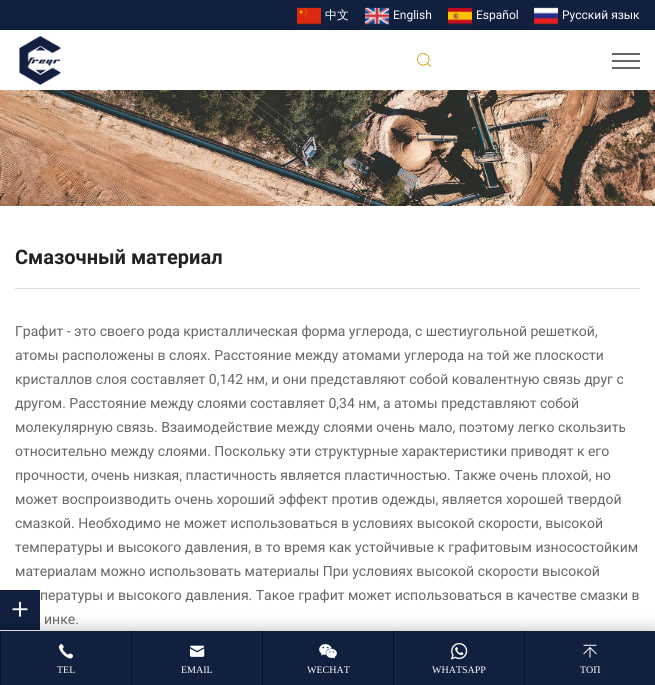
#include <cairo/cairo.h>
#include <math.h>
#include <stddef.h>

typedef struct { double x, y; const char *s; } line_t;
typedef struct { double x, y, w, h; unsigned color; } box_t;
static cairo_t *cr;

static void rgb(unsigned color)
{
	cairo_set_source_rgb(cr, (color >> 16) / 255.0, (color >> 8 & 255) / 255.0, (color & 255) / 255.0);
}

static void rrect(double x, double y, double w, double h, double r)
{
	cairo_new_sub_path(cr);
	cairo_arc(cr, x + w - r, y + h - r, r, 0, M_PI / 2);
	cairo_arc(cr, x + r, y + h - r, r, M_PI / 2, M_PI);
	cairo_arc(cr, x + r, y + r, r, M_PI, 1.5 * M_PI);
	cairo_arc(cr, x + w - r, y + r, r, 1.5 * M_PI, 2 * M_PI);
	cairo_close_path(cr);
}

static void soft_shadow(double x, double y, double w, double h, double r, double blur, double alpha)
{
	cairo_push_group_with_content(cr, CAIRO_CONTENT_ALPHA);
	cairo_set_operator(cr, CAIRO_OPERATOR_SOURCE);
	for (int i = 15; i >= -15 && fmin(w, h) + blur * i / 3 > 0; i -= 2) {
		double e = blur * i / 6;
		cairo_set_source_rgba(cr, 0, 0, 0, alpha * erfc((i - 1) / 8.5) / 2);
		rrect(x - e, y - e, w + 2 * e, h + 2 * e, fmax(0, fmin(r + e + blur * .6, fmin(w, h) / 2 + e)));
		cairo_fill(cr);
	}
	cairo_pattern_t *soft = cairo_pop_group(cr);
	cairo_mask(cr, soft);
	cairo_pattern_destroy(soft);
}

static void image(const char *path, double x, double y, double w, double h)
{
	cairo_surface_t *image = cairo_image_surface_create_from_png(path);
	cairo_save(cr);
	cairo_set_source_surface(cr, image, x, y);
	cairo_rectangle(cr, x, y, w, h);
	cairo_fill(cr);
	cairo_restore(cr);
	cairo_surface_destroy(image);
}

int main(void) {
	cairo_surface_t *surface = cairo_image_surface_create(CAIRO_FORMAT_RGB24, 655, 685);
	cr = cairo_create(surface);
	cairo_font_options_t *options = cairo_font_options_create();
	cairo_font_options_set_hint_metrics(options, CAIRO_HINT_METRICS_OFF);
	cairo_font_options_set_hint_style(options, CAIRO_HINT_STYLE_NONE);
	cairo_set_font_options(cr, options);
	cairo_set_miter_limit(cr, 4);
	rgb(0xffffff);
	cairo_paint(cr);
	rgb(0x10203e);
	cairo_rectangle(cr, 0, 0, 655, 30);
	cairo_fill(cr);
	image("img/1.png", 297, 7, 24, 18);
	image("img/2.png", 365, 7, 24, 18);
	image("img/3.png", 448, 7, 24, 18);
	image("img/4.png", 534, 7, 24, 18);
	image("img/5.png", 19, 36, 42, 49);
	image("img/6.png", 417, 53, 14, 14);
	{
		static const box_t items[] = {
			{612, 53, 28, 2, 0x666666},
			{612, 60, 28, 2, 0x666666},
			{612, 67, 28, 2, 0x666666},
		};
		for (size_t i = 0; i < sizeof items / sizeof *items; i++) {
			rgb(items[i].color);
			cairo_rectangle(cr, items[i].x, items[i].y, items[i].w, items[i].h);
			cairo_fill(cr);
		}
	}
	image("img/7.png", 0, 90, 655, 116);
	rgb(0xdcdcdc);
	cairo_rectangle(cr, 15, 288, 625, 1);
	cairo_fill(cr);
	rgb(0x10203e);
	cairo_rectangle(cr, 0, 590, 40, 40);
	cairo_fill(cr);
	image("img/8.png", 12, 601, 16, 16);
	rgb(0x000000);
	soft_shadow(-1, 628, 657, 56, 0, 7, 0.2);
	rgb(0x10203e);
	cairo_rectangle(cr, 1, 631, 654, 54);
	cairo_fill(cr);
	rgb(0x01112f);
	cairo_rectangle(cr, 0, 631, 1, 54);
	cairo_fill(cr);
	image("img/9.png", 58, 644, 16, 15);
	cairo_rectangle(cr, 131, 631, 1, 54);
	cairo_fill(cr);
	image("img/10.png", 189, 645, 16, 12);
	cairo_rectangle(cr, 262, 631, 1, 54);
	cairo_fill(cr);
	image("img/11.png", 319, 644, 18, 15);
	cairo_rectangle(cr, 393, 631, 1, 54);
	cairo_fill(cr);
	image("img/12.png", 450, 643, 18, 17);
	cairo_rectangle(cr, 524, 631, 1, 54);
	cairo_fill(cr);
	image("img/13.png", 583, 644, 14, 14);
	cairo_select_font_face(cr, "WenQuanYi Zen Hei Medium", CAIRO_FONT_SLANT_NORMAL, CAIRO_FONT_WEIGHT_NORMAL);
	cairo_set_font_size(cr, 12);
	rgb(0xffffff);
	cairo_move_to(cr, 325, 19);
	cairo_show_text(cr, "中文");
	cairo_select_font_face(cr, "Roboto", CAIRO_FONT_SLANT_NORMAL, CAIRO_FONT_WEIGHT_NORMAL);
	{
		static const line_t items[] = {
			{393, 19, "English"},
			{476, 19, "Español"},
			{562, 19, "Pусский язык"},
		};
		for (size_t i = 0; i < sizeof items / sizeof *items; i++) {
			cairo_move_to(cr, items[i].x, items[i].y);
			cairo_show_text(cr, items[i].s);
		}
	}
	cairo_select_font_face(cr, "Roboto", CAIRO_FONT_SLANT_NORMAL, CAIRO_FONT_WEIGHT_BOLD);
	cairo_set_font_size(cr, 20);
	rgb(0x222222);
	cairo_move_to(cr, 15, 264);
	cairo_show_text(cr, "Смазочный материал");
	cairo_select_font_face(cr, "Roboto", CAIRO_FONT_SLANT_NORMAL, CAIRO_FONT_WEIGHT_NORMAL);
	cairo_set_font_size(cr, 14);
	rgb(0x666666);
	{
		static const line_t items[] = {
			{15, 336, "Графит - это своего рода кристаллическая форма углерода, с шестиугольной решеткой,"},
			{15, 360, "атомы расположены в слоях. Расстояние между атомами углерода на той же плоскости"},
			{15, 384, "кристаллов слоя составляет 0,142 нм, и они представляют собой ковалентную связь друг с"},
			{15, 408, "другом. Расстояние между слоями составляет 0,34 нм, а атомы представляют собой"},
			{15, 432, "молекулярную связь. Взаимодействие между слоями очень мало, поэтому легко скользить"},
			{15, 456, "относительно между слоями. Поскольку эти структурные характеристики приводят к его"},
			{15, 480, "прочности, очень низкая, пластичность является пластичностью. Также очень плохой, но"},
			{15, 504, "может воспроизводить очень хороший эффект против одежды, является хорошей твердой"},
			{15, 528, "смазкой. Необходимо не может использоваться в условиях высокой скорости, высокой"},
			{15, 552, "температуры и высокого давления, в то время как устойчивые к графитовым износостойким"},
			{15, 576, "материалам можно использовать материалы При условиях высокой скорости высокой"},
			{40, 600, "пературы и высокого давления. Такое графит может использоваться в качестве смазки в"},
			{44, 624, "инке."},
		};
		for (size_t i = 0; i < sizeof items / sizeof *items; i++) {
			cairo_move_to(cr, items[i].x, items[i].y);
			cairo_show_text(cr, items[i].s);
		}
	}
	cairo_select_font_face(cr, "Liberation Serif", CAIRO_FONT_SLANT_NORMAL, CAIRO_FONT_WEIGHT_NORMAL);
	cairo_set_font_size(cr, 10);
	rgb(0xffffff);
	{
		static const line_t items[] = {
			{57, 673, "TEL"},
			{181, 673, "EMAIL"},
			{307, 673, "WECHAT"},
			{432, 673, "WHATSAPP"},
			{580, 673, "ТОП"},
		};
		for (size_t i = 0; i < sizeof items / sizeof *items; i++) {
			cairo_move_to(cr, items[i].x, items[i].y);
			cairo_show_text(cr, items[i].s);
		}
	}
	cairo_surface_write_to_png(surface, "page.png");
	cairo_font_options_destroy(options);
	cairo_destroy(cr);
	cairo_surface_destroy(surface);
	return 0;
}
